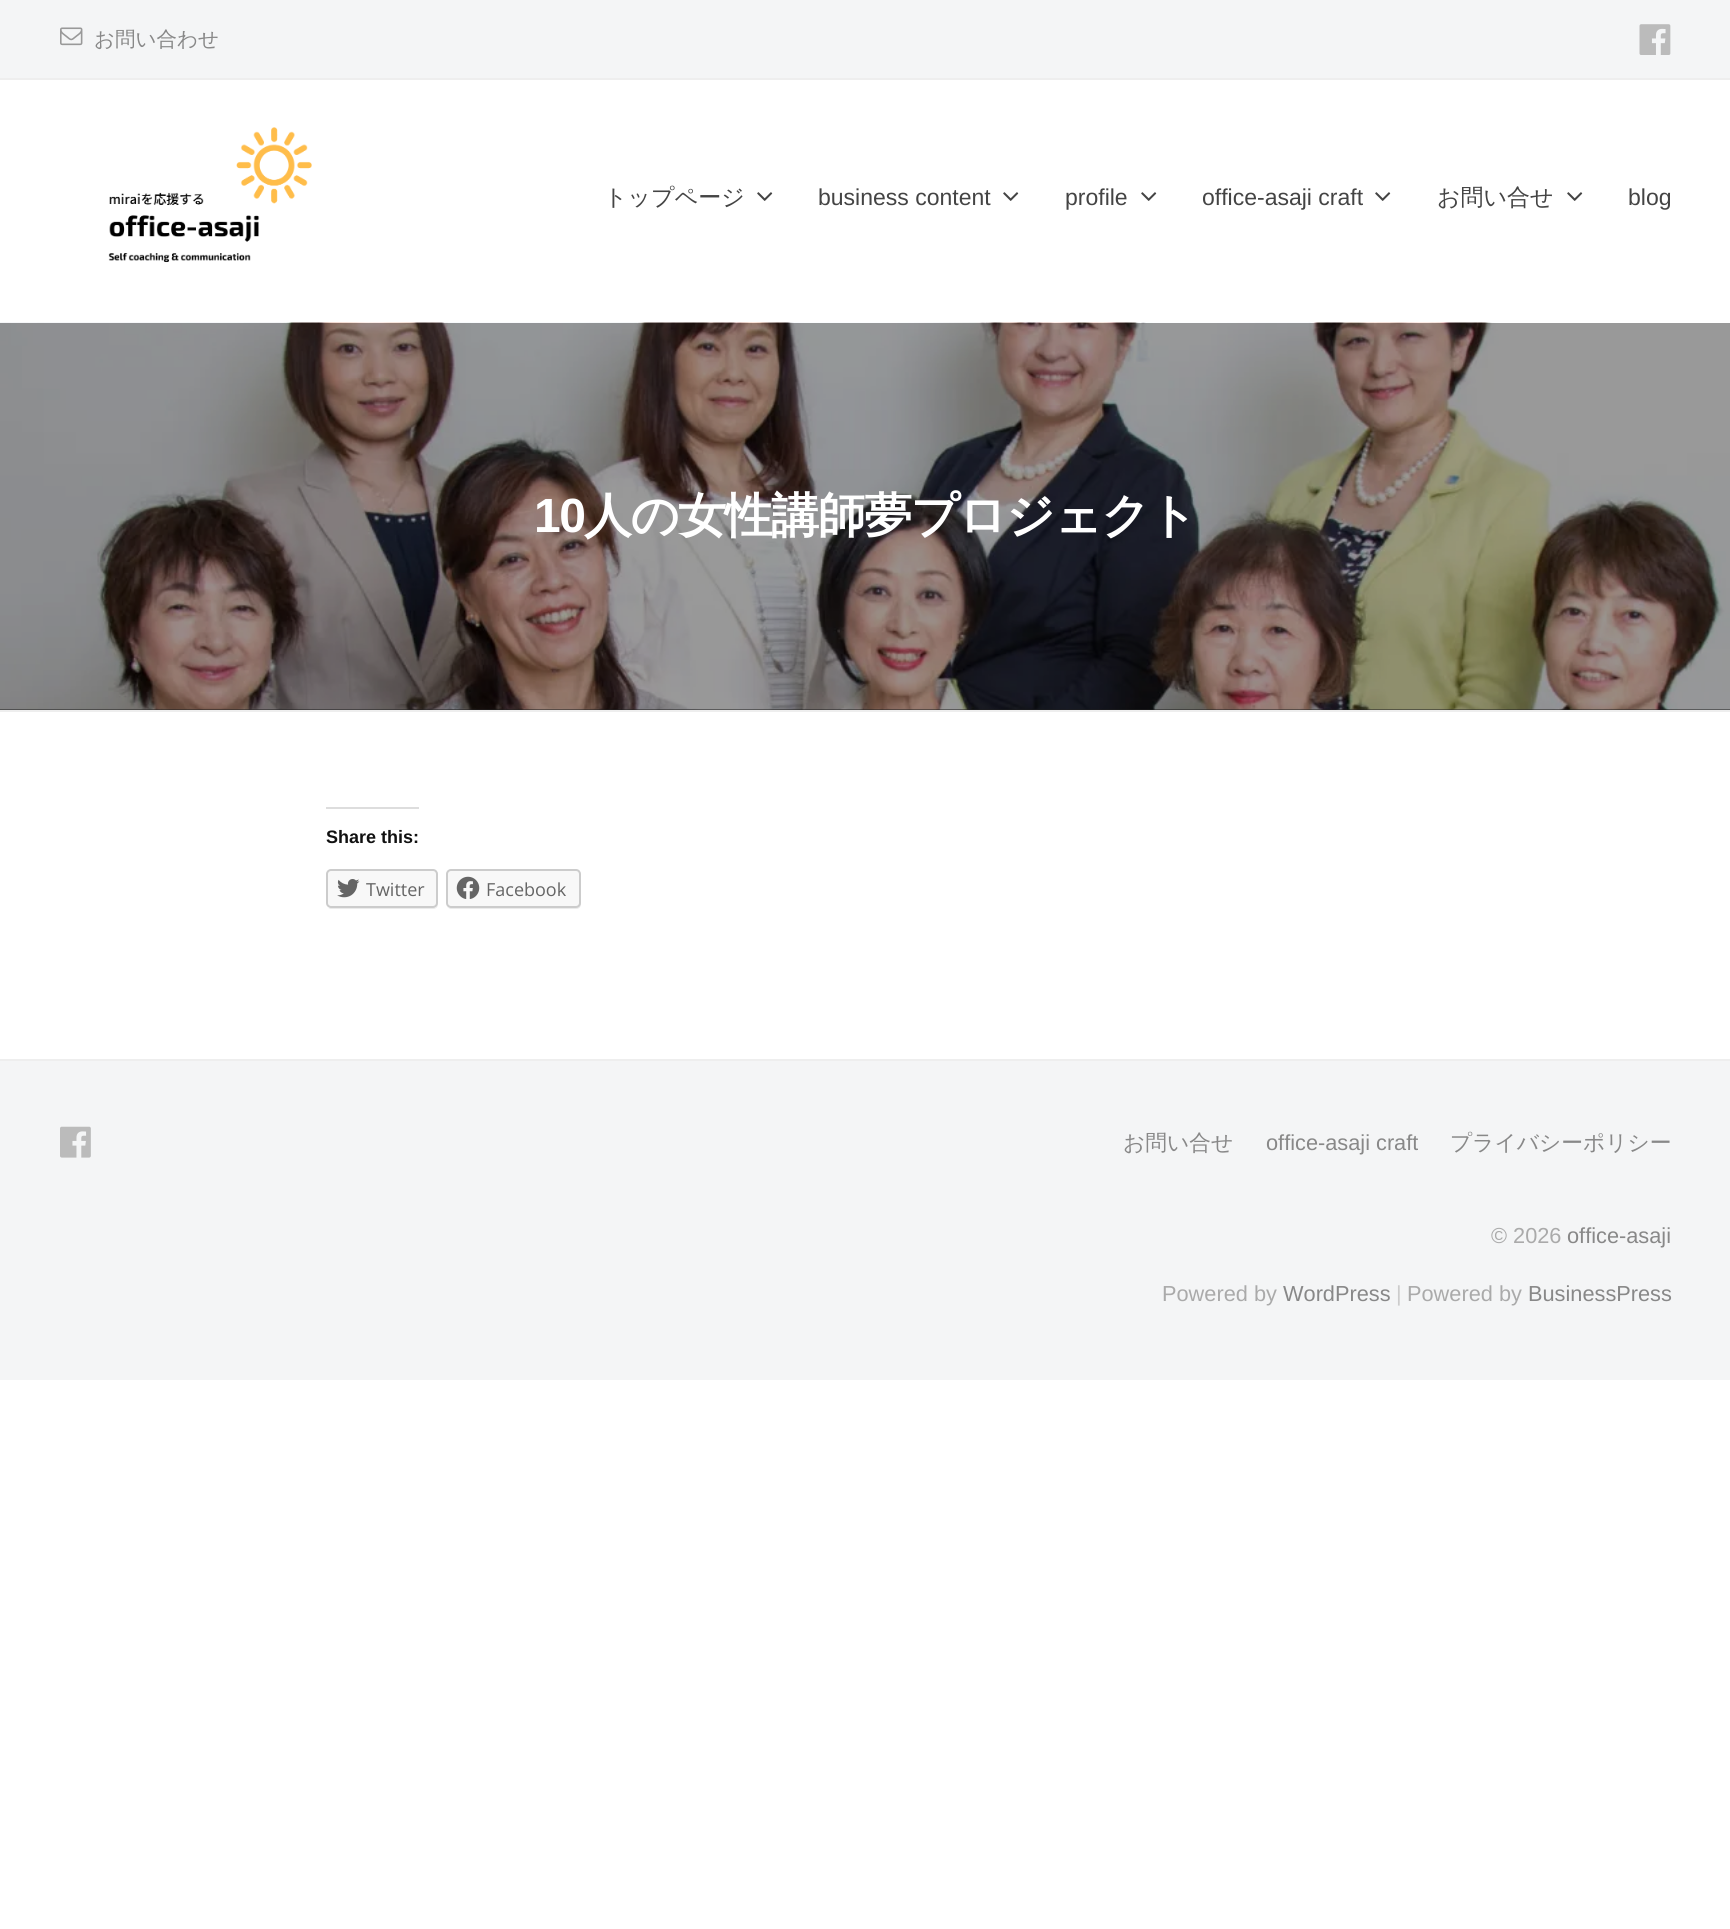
#include <cairo/cairo.h>
#include <math.h>
#include <stddef.h>

typedef struct { double x, y; const char *s; } line_t;
typedef struct { double x, y, w, h; unsigned color; } box_t;
static cairo_t *cr;

static void rgb(unsigned color)
{
	cairo_set_source_rgb(cr, (color >> 16) / 255.0, (color >> 8 & 255) / 255.0, (color & 255) / 255.0);
}

static void tracked(double x, double y, const char *s, double letter, double word)
{
	cairo_move_to(cr, x, y);
	while (*s) {
		char ch[5] = {0};
		int n = 0;
		do ch[n++] = *s++; while ((*s & 0xC0) == 0x80);
		cairo_show_text(cr, ch);
		cairo_rel_move_to(cr, letter + word * (*ch == ' '), 0);
	}
}

static void rrect(double x, double y, double w, double h, double r)
{
	cairo_new_sub_path(cr);
	cairo_arc(cr, x + w - r, y + h - r, r, 0, M_PI / 2);
	cairo_arc(cr, x + r, y + h - r, r, M_PI / 2, M_PI);
	cairo_arc(cr, x + r, y + r, r, M_PI, 1.5 * M_PI);
	cairo_arc(cr, x + w - r, y + r, r, 1.5 * M_PI, 2 * M_PI);
	cairo_close_path(cr);
}

static void image(const char *path, double x, double y, double w, double h)
{
	cairo_surface_t *image = cairo_image_surface_create_from_png(path);
	cairo_save(cr);
	cairo_set_source_surface(cr, image, x, y);
	cairo_rectangle(cr, x, y, w, h);
	cairo_fill(cr);
	cairo_restore(cr);
	cairo_surface_destroy(image);
}

int main(void) {
	cairo_surface_t *surface = cairo_image_surface_create(CAIRO_FORMAT_RGB24, 1730, 1929);
	cr = cairo_create(surface);
	cairo_font_options_t *options = cairo_font_options_create();
	cairo_font_options_set_hint_metrics(options, CAIRO_HINT_METRICS_OFF);
	cairo_font_options_set_hint_style(options, CAIRO_HINT_STYLE_NONE);
	cairo_set_font_options(cr, options);
	cairo_set_miter_limit(cr, 4);
	rgb(0xffffff);
	cairo_paint(cr);
	{
		static const box_t items[] = {
			{0, 710, 1730, 2, 0xeeeeee},
			{0, 0, 1730, 78, 0xf4f5f6},
			{0, 78, 1730, 2, 0xeeeeee},
		};
		for (size_t i = 0; i < sizeof items / sizeof *items; i++) {
			rgb(items[i].color);
			cairo_rectangle(cr, items[i].x, items[i].y, items[i].w, items[i].h);
			cairo_fill(cr);
		}
	}
	image("img/1.png", 60, 27, 23, 19);
	image("img/2.png", 1639, 24, 32, 31);
	image("img/3.png", 108, 127, 204, 136);
	image("img/4.png", 757, 192, 16, 9);
	image("img/4.png", 1003, 192, 16, 9);
	image("img/4.png", 1141, 192, 16, 9);
	image("img/4.png", 1375, 192, 16, 9);
	image("img/4.png", 1567, 192, 16, 9);
	rgb(0x1f1f1f);
	cairo_rectangle(cr, 0, 709, 1730, 1);
	cairo_fill(cr);
	image("img/5.png", 0, 322, 1730, 388);
	rgb(0xdddddd);
	cairo_rectangle(cr, 326, 807, 93, 2);
	cairo_fill(cr);
	rgb(0xebebeb);
	cairo_new_path(cr);
	cairo_move_to(cr, 326, 905);
	cairo_curve_to(cr, 327, 907, 329, 909, 331, 909);
	cairo_line_to(cr, 433, 909);
	cairo_curve_to(cr, 436, 909, 438, 907, 438, 904);
	cairo_line_to(cr, 438, 903);
	cairo_curve_to(cr, 438, 905, 436, 908, 434, 908);
	cairo_line_to(cr, 330, 908);
	cairo_curve_to(cr, 328, 908, 327, 907, 326, 905);
	cairo_close_path(cr);
	cairo_fill(cr);
	rgb(0xf8f8f8);
	rrect(327, 870, 110, 37, 4);
	cairo_fill_preserve(cr);
	rgb(0xcccccc);
	cairo_stroke(cr);
	image("img/6.png", 337, 879, 23, 19);
	rgb(0xebebeb);
	cairo_new_path(cr);
	cairo_move_to(cr, 446, 905);
	cairo_curve_to(cr, 447, 907, 449, 909, 451, 909);
	cairo_line_to(cr, 576, 909);
	cairo_curve_to(cr, 579, 909, 581, 907, 581, 904);
	cairo_line_to(cr, 581, 875);
	cairo_line_to(cr, 580, 873);
	cairo_line_to(cr, 580, 898);
	cairo_curve_to(cr, 580, 901, 581, 907, 576, 908);
	cairo_line_to(cr, 450, 908);
	cairo_curve_to(cr, 448, 907, 447, 907, 446, 905);
	cairo_close_path(cr);
	cairo_fill(cr);
	rgb(0xf8f8f8);
	rrect(447, 870, 133, 37, 4);
	cairo_fill_preserve(cr);
	rgb(0xcccccc);
	cairo_stroke(cr);
	image("img/7.png", 456, 876, 24, 23);
	rgb(0xf4f5f6);
	cairo_rectangle(cr, 0, 1061, 1730, 319);
	cairo_fill(cr);
	rgb(0xeeeeee);
	cairo_rectangle(cr, 0, 1059, 1730, 2);
	cairo_fill(cr);
	image("img/8.png", 60, 1126, 31, 32);
	cairo_select_font_face(cr, "WenQuanYi Zen Hei Medium", CAIRO_FONT_SLANT_NORMAL, CAIRO_FONT_WEIGHT_NORMAL);
	cairo_set_font_size(cr, 20.5);
	rgb(0x888888);
	cairo_move_to(cr, 94, 46);
	cairo_show_text(cr, "お問い合わせ");
	cairo_set_font_size(cr, 23);
	rgb(0x444444);
	cairo_move_to(cr, 604, 205);
	cairo_show_text(cr, "トップページ");
	cairo_select_font_face(cr, "Liberation Sans", CAIRO_FONT_SLANT_NORMAL, CAIRO_FONT_WEIGHT_NORMAL);
	{
		static const line_t items[] = {
			{818, 205, "business content"},
			{1065, 205, "profile"},
			{1202, 205, "office-asaji craft"},
		};
		for (size_t i = 0; i < sizeof items / sizeof *items; i++) {
			cairo_move_to(cr, items[i].x, items[i].y);
			cairo_show_text(cr, items[i].s);
		}
	}
	cairo_select_font_face(cr, "WenQuanYi Zen Hei Medium", CAIRO_FONT_SLANT_NORMAL, CAIRO_FONT_WEIGHT_NORMAL);
	cairo_move_to(cr, 1437, 205);
	cairo_show_text(cr, "お問い合せ");
	cairo_select_font_face(cr, "Liberation Sans", CAIRO_FONT_SLANT_NORMAL, CAIRO_FONT_WEIGHT_NORMAL);
	cairo_move_to(cr, 1628, 205);
	cairo_show_text(cr, "blog");
	cairo_select_font_face(cr, "Liberation Sans", CAIRO_FONT_SLANT_NORMAL, CAIRO_FONT_WEIGHT_BOLD);
	cairo_set_font_size(cr, 48);
	rgb(0xffffff);
	tracked(534, 532, "10", -1.5, 0);
	cairo_select_font_face(cr, "WenQuanYi Zen Hei", CAIRO_FONT_SLANT_NORMAL, CAIRO_FONT_WEIGHT_BOLD);
	tracked(584, 532, "人の女性講師夢プロジェクト", -1.5, 0);
	cairo_select_font_face(cr, "Liberation Sans", CAIRO_FONT_SLANT_NORMAL, CAIRO_FONT_WEIGHT_BOLD);
	cairo_set_font_size(cr, 18);
	rgb(0x111111);
	cairo_move_to(cr, 326, 843);
	cairo_show_text(cr, "Share this:");
	cairo_select_font_face(cr, "Open Sans", CAIRO_FONT_SLANT_NORMAL, CAIRO_FONT_WEIGHT_NORMAL);
	rgb(0x656565);
	cairo_move_to(cr, 366, 896);
	cairo_show_text(cr, "Twitter");
	cairo_move_to(cr, 486, 896);
	cairo_show_text(cr, "Facebook");
	cairo_select_font_face(cr, "WenQuanYi Zen Hei Medium", CAIRO_FONT_SLANT_NORMAL, CAIRO_FONT_WEIGHT_NORMAL);
	cairo_set_font_size(cr, 21.75);
	rgb(0x888888);
	cairo_move_to(cr, 1123, 1150);
	cairo_show_text(cr, "お問い合せ");
	cairo_select_font_face(cr, "Liberation Sans", CAIRO_FONT_SLANT_NORMAL, CAIRO_FONT_WEIGHT_NORMAL);
	cairo_move_to(cr, 1266, 1150);
	cairo_show_text(cr, "office-asaji craft");
	cairo_select_font_face(cr, "WenQuanYi Zen Hei Medium", CAIRO_FONT_SLANT_NORMAL, CAIRO_FONT_WEIGHT_NORMAL);
	cairo_move_to(cr, 1450, 1150);
	cairo_show_text(cr, "プライバシーポリシー");
	cairo_select_font_face(cr, "Liberation Sans", CAIRO_FONT_SLANT_NORMAL, CAIRO_FONT_WEIGHT_NORMAL);
	rgb(0xaaaaaa);
	cairo_move_to(cr, 1491, 1243);
	cairo_show_text(cr, "© 2026");
	rgb(0x888888);
	cairo_move_to(cr, 1567, 1243);
	cairo_show_text(cr, "office-asaji");
	rgb(0xaaaaaa);
	cairo_move_to(cr, 1162, 1301);
	cairo_show_text(cr, "Powered by");
	rgb(0x888888);
	cairo_move_to(cr, 1283, 1301);
	cairo_show_text(cr, "WordPress");
	rgb(0xcccccc);
	cairo_move_to(cr, 1396, 1301);
	cairo_show_text(cr, "|");
	rgb(0xaaaaaa);
	cairo_move_to(cr, 1407, 1301);
	cairo_show_text(cr, "Powered by");
	rgb(0x888888);
	cairo_move_to(cr, 1528, 1301);
	cairo_show_text(cr, "BusinessPress");
	cairo_surface_write_to_png(surface, "page.png");
	cairo_font_options_destroy(options);
	cairo_destroy(cr);
	cairo_surface_destroy(surface);
	return 0;
}
